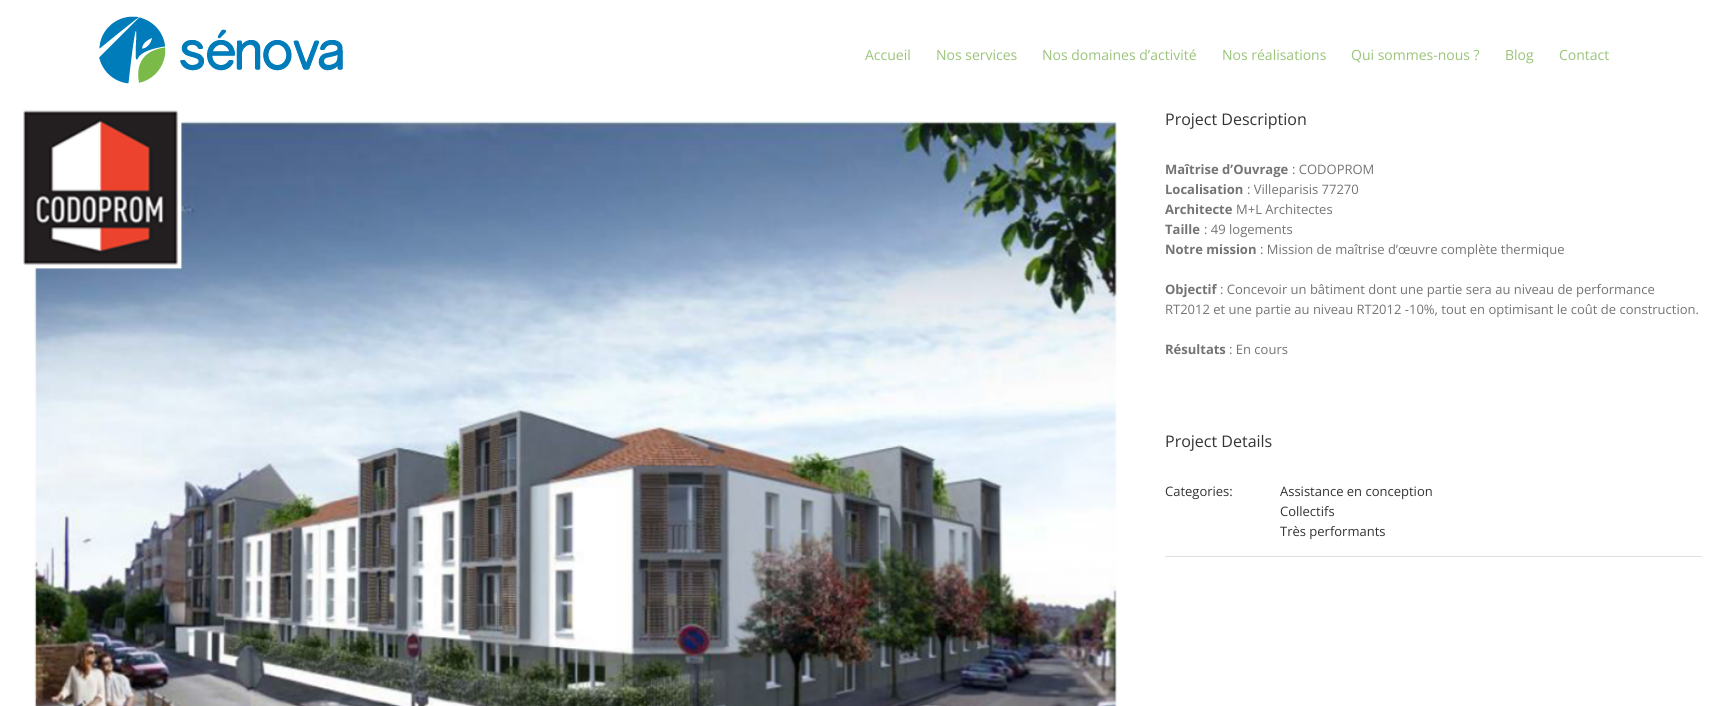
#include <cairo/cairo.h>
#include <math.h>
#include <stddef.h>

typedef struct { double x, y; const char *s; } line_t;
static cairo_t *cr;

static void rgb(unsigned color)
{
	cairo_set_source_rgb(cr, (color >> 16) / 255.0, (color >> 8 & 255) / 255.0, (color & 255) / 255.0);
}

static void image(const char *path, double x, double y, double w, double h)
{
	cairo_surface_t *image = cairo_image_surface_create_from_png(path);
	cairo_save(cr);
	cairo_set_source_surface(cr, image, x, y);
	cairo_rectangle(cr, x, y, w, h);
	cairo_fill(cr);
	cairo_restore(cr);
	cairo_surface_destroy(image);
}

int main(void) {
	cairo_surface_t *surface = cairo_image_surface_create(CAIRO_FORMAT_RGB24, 1722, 706);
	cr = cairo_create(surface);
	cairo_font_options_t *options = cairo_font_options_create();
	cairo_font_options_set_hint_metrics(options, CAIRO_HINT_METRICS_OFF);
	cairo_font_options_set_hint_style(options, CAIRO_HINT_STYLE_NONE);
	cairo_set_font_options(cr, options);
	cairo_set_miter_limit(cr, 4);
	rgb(0xffffff);
	cairo_paint(cr);
	image("img/1.png", 99, 16, 244, 68);
	image("img/2.png", 23, 110, 1094, 596);
	rgb(0xe0dede);
	cairo_rectangle(cr, 1165, 556, 537, 1);
	cairo_fill(cr);
	cairo_select_font_face(cr, "Open Sans", CAIRO_FONT_SLANT_NORMAL, CAIRO_FONT_WEIGHT_NORMAL);
	cairo_set_font_size(cr, 14);
	rgb(0x9ac47a);
	{
		static const line_t items[] = {
			{865, 60, "Accueil"},
			{936, 60, "Nos services"},
			{1042, 60, "Nos domaines d’activité"},
			{1222, 60, "Nos réalisations"},
			{1351, 60, "Qui sommes-nous ?"},
			{1505, 60, "Blog"},
			{1559, 60, "Contact"},
		};
		for (size_t i = 0; i < sizeof items / sizeof *items; i++) {
			cairo_move_to(cr, items[i].x, items[i].y);
			cairo_show_text(cr, items[i].s);
		}
	}
	cairo_set_font_size(cr, 16);
	rgb(0x333333);
	cairo_move_to(cr, 1165, 125);
	cairo_show_text(cr, "Project Description");
	cairo_select_font_face(cr, "Open Sans", CAIRO_FONT_SLANT_NORMAL, CAIRO_FONT_WEIGHT_BOLD);
	cairo_set_font_size(cr, 13);
	rgb(0x747474);
	cairo_move_to(cr, 1165, 174);
	cairo_show_text(cr, "Maîtrise d’Ouvrage");
	cairo_select_font_face(cr, "Open Sans", CAIRO_FONT_SLANT_NORMAL, CAIRO_FONT_WEIGHT_NORMAL);
	cairo_move_to(cr, 1292, 174);
	cairo_show_text(cr, ": CODOPROM");
	cairo_select_font_face(cr, "Open Sans", CAIRO_FONT_SLANT_NORMAL, CAIRO_FONT_WEIGHT_BOLD);
	cairo_move_to(cr, 1165, 194);
	cairo_show_text(cr, "Localisation");
	cairo_select_font_face(cr, "Open Sans", CAIRO_FONT_SLANT_NORMAL, CAIRO_FONT_WEIGHT_NORMAL);
	cairo_move_to(cr, 1247, 194);
	cairo_show_text(cr, ": Villeparisis 77270");
	cairo_select_font_face(cr, "Open Sans", CAIRO_FONT_SLANT_NORMAL, CAIRO_FONT_WEIGHT_BOLD);
	cairo_move_to(cr, 1165, 214);
	cairo_show_text(cr, "Architecte");
	cairo_select_font_face(cr, "Open Sans", CAIRO_FONT_SLANT_NORMAL, CAIRO_FONT_WEIGHT_NORMAL);
	cairo_move_to(cr, 1236, 214);
	cairo_show_text(cr, "M+L Architectes");
	cairo_select_font_face(cr, "Open Sans", CAIRO_FONT_SLANT_NORMAL, CAIRO_FONT_WEIGHT_BOLD);
	cairo_move_to(cr, 1165, 234);
	cairo_show_text(cr, "Taille");
	cairo_select_font_face(cr, "Open Sans", CAIRO_FONT_SLANT_NORMAL, CAIRO_FONT_WEIGHT_NORMAL);
	cairo_move_to(cr, 1204, 234);
	cairo_show_text(cr, ": 49 logements");
	cairo_select_font_face(cr, "Open Sans", CAIRO_FONT_SLANT_NORMAL, CAIRO_FONT_WEIGHT_BOLD);
	cairo_move_to(cr, 1165, 254);
	cairo_show_text(cr, "Notre mission");
	cairo_select_font_face(cr, "Open Sans", CAIRO_FONT_SLANT_NORMAL, CAIRO_FONT_WEIGHT_NORMAL);
	cairo_move_to(cr, 1260, 254);
	cairo_show_text(cr, ": Mission de maîtrise d’œuvre complète thermique");
	cairo_select_font_face(cr, "Open Sans", CAIRO_FONT_SLANT_NORMAL, CAIRO_FONT_WEIGHT_BOLD);
	cairo_move_to(cr, 1165, 294);
	cairo_show_text(cr, "Objectif");
	cairo_select_font_face(cr, "Open Sans", CAIRO_FONT_SLANT_NORMAL, CAIRO_FONT_WEIGHT_NORMAL);
	cairo_move_to(cr, 1220, 294);
	cairo_show_text(cr, ": Concevoir un bâtiment dont une partie sera au niveau de performance");
	cairo_move_to(cr, 1165, 314);
	cairo_show_text(cr, "RT2012 et une partie au niveau RT2012 -10%, tout en optimisant le coût de construction.");
	cairo_select_font_face(cr, "Open Sans", CAIRO_FONT_SLANT_NORMAL, CAIRO_FONT_WEIGHT_BOLD);
	cairo_move_to(cr, 1165, 354);
	cairo_show_text(cr, "Résultats");
	cairo_select_font_face(cr, "Open Sans", CAIRO_FONT_SLANT_NORMAL, CAIRO_FONT_WEIGHT_NORMAL);
	cairo_move_to(cr, 1229, 354);
	cairo_show_text(cr, ": En cours");
	cairo_set_font_size(cr, 16);
	rgb(0x333333);
	cairo_move_to(cr, 1165, 447);
	cairo_show_text(cr, "Project Details");
	cairo_set_font_size(cr, 13);
	{
		static const line_t items[] = {
			{1165, 496, "Categories:"},
			{1280, 496, "Assistance en conception"},
			{1280, 516, "Collectifs"},
			{1280, 536, "Très performants"},
		};
		for (size_t i = 0; i < sizeof items / sizeof *items; i++) {
			cairo_move_to(cr, items[i].x, items[i].y);
			cairo_show_text(cr, items[i].s);
		}
	}
	cairo_surface_write_to_png(surface, "page.png");
	cairo_font_options_destroy(options);
	cairo_destroy(cr);
	cairo_surface_destroy(surface);
	return 0;
}
